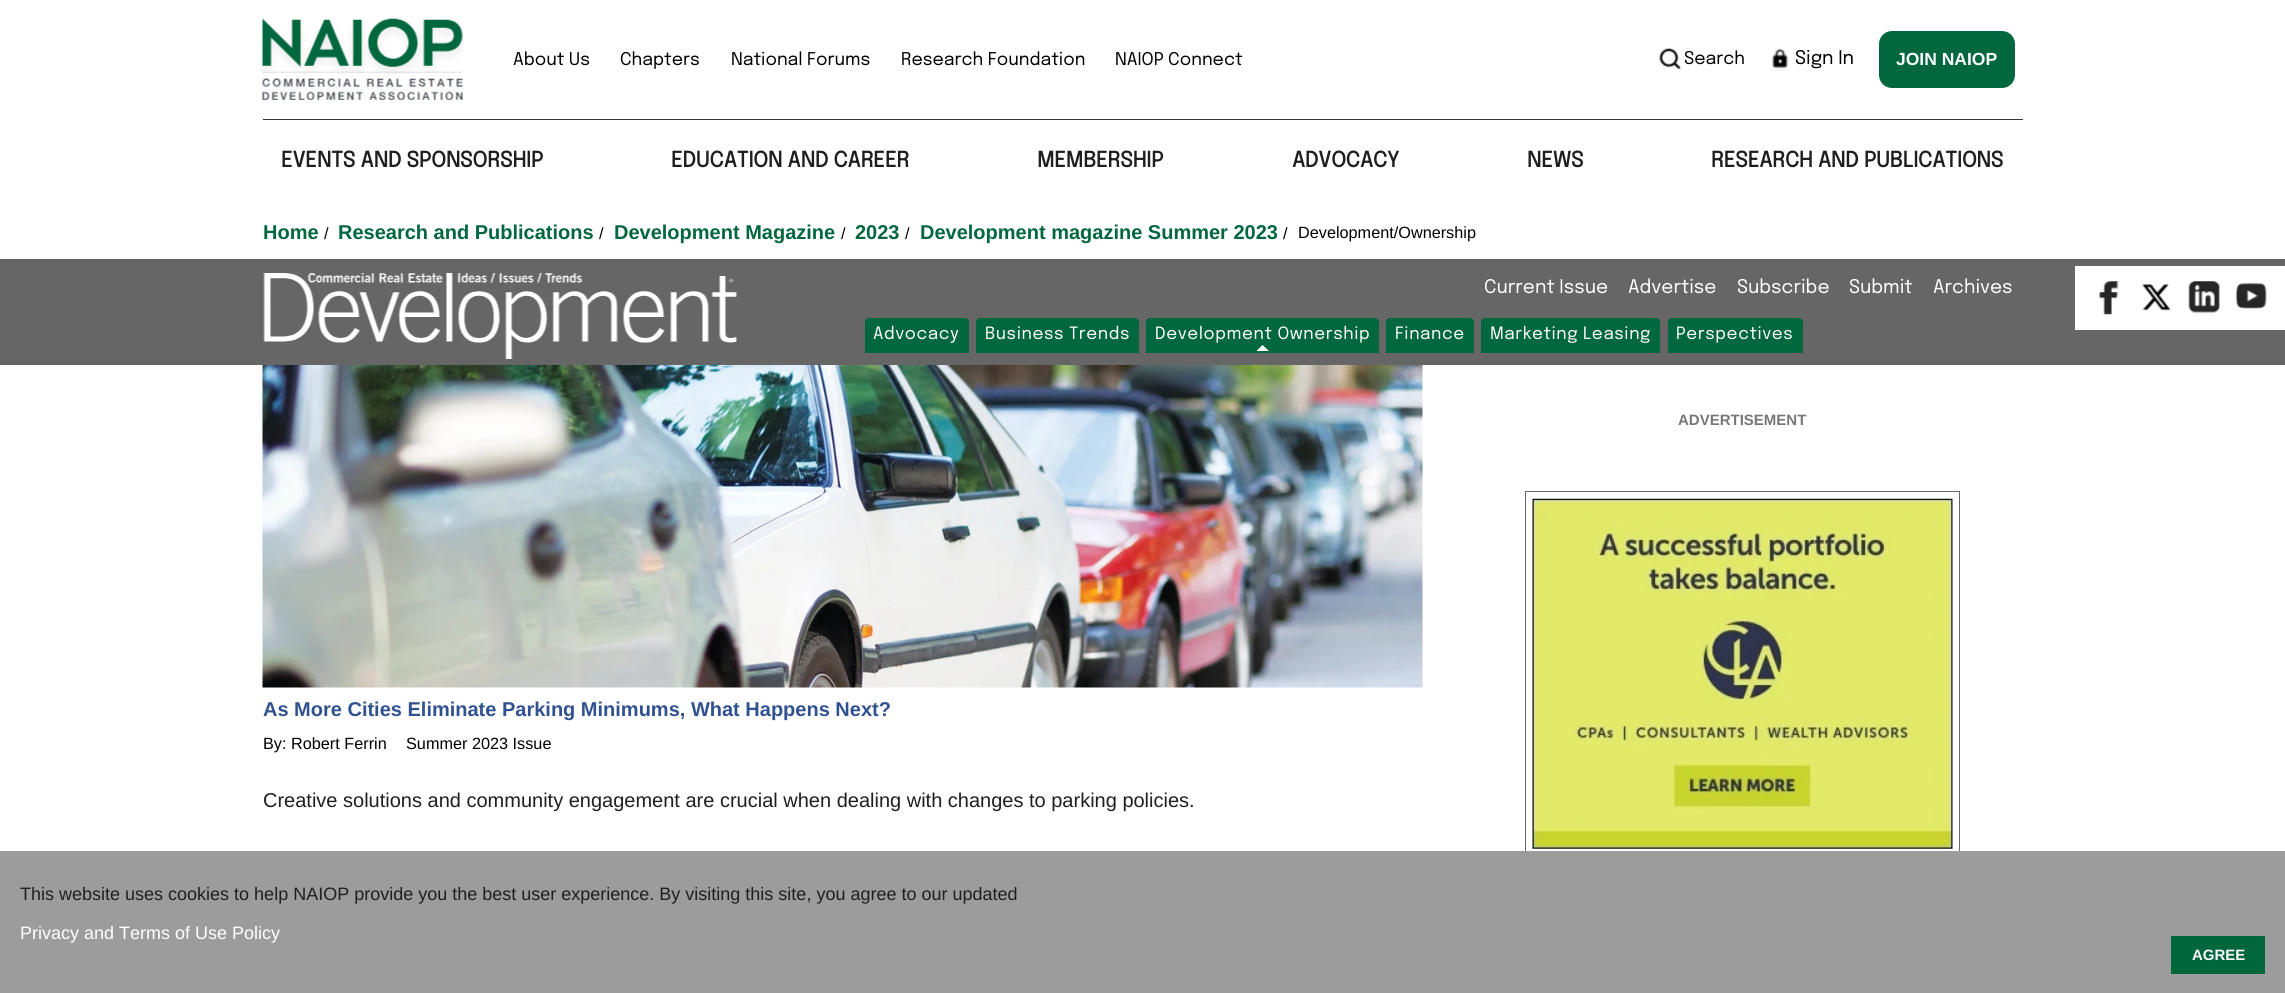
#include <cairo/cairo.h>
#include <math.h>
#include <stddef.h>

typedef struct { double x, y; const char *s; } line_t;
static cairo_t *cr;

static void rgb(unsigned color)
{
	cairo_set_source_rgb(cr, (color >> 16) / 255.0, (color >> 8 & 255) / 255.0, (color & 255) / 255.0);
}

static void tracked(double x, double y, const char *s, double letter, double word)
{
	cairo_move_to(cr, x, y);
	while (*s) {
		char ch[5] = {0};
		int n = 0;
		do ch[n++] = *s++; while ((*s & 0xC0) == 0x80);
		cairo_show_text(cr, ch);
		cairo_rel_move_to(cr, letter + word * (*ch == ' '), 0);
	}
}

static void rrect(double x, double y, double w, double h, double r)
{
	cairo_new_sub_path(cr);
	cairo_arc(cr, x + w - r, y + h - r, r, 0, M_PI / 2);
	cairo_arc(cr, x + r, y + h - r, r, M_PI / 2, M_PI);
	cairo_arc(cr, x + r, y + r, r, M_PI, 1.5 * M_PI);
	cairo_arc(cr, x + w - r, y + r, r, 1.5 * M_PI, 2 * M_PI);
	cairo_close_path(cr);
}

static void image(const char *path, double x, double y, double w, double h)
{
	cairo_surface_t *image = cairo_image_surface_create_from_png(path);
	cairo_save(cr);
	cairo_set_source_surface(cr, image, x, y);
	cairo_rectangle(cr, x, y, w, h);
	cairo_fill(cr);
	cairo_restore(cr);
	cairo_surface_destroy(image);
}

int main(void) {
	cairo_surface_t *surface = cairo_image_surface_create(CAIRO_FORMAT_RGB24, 2285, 993);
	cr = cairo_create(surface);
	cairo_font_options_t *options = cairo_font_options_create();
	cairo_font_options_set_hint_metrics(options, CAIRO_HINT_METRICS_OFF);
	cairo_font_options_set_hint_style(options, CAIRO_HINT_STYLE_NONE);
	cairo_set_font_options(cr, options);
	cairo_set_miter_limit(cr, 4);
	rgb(0xffffff);
	cairo_paint(cr);
	image("img/1.png", 261, 18, 203, 82);
	image("img/2.png", 1659, 48, 22, 21);
	image("img/3.png", 1771, 48, 18, 23);
	rgb(0x01673e);
	rrect(1880.5, 32.5, 133, 54, 11.5);
	cairo_fill_preserve(cr);
	cairo_set_line_width(cr, 3);
	cairo_stroke(cr);
	rgb(0x333333);
	cairo_rectangle(cr, 263, 119, 1760, 1);
	cairo_fill(cr);
	rgb(0x666666);
	cairo_rectangle(cr, 0, 259, 2285, 106);
	cairo_fill(cr);
	image("img/4.png", 263, 273, 474, 86);
	rgb(0x01673e);
	cairo_new_path(cr);
	cairo_move_to(cr, 869, 318);
	cairo_line_to(cr, 965, 318);
	cairo_curve_to(cr, 967, 318, 969, 320, 969, 322);
	cairo_line_to(cr, 969, 353);
	cairo_line_to(cr, 865, 353);
	cairo_line_to(cr, 865, 322);
	cairo_curve_to(cr, 865, 320, 867, 318, 869, 318);
	cairo_close_path(cr);
	cairo_fill(cr);
	cairo_new_path(cr);
	cairo_move_to(cr, 980, 318);
	cairo_line_to(cr, 1135, 318);
	cairo_curve_to(cr, 1137, 318, 1139, 320, 1139, 322);
	cairo_line_to(cr, 1139, 353);
	cairo_line_to(cr, 976, 353);
	cairo_line_to(cr, 976, 322);
	cairo_curve_to(cr, 976, 320, 978, 318, 980, 318);
	cairo_close_path(cr);
	cairo_fill(cr);
	cairo_new_path(cr);
	cairo_move_to(cr, 1150, 318);
	cairo_line_to(cr, 1375, 318);
	cairo_curve_to(cr, 1377, 318, 1379, 320, 1379, 322);
	cairo_line_to(cr, 1379, 353);
	cairo_line_to(cr, 1146, 353);
	cairo_line_to(cr, 1146, 322);
	cairo_curve_to(cr, 1146, 320, 1148, 318, 1150, 318);
	cairo_close_path(cr);
	cairo_fill(cr);
	rgb(0xffffff);
	cairo_new_path(cr);
	cairo_move_to(cr, 1269, 351);
	cairo_line_to(cr, 1256.5, 351);
	cairo_line_to(cr, 1262.5, 345);
	cairo_close_path(cr);
	cairo_fill(cr);
	rgb(0x01673e);
	cairo_new_path(cr);
	cairo_move_to(cr, 1390, 318);
	cairo_line_to(cr, 1470, 318);
	cairo_curve_to(cr, 1472, 318, 1474, 320, 1474, 322);
	cairo_line_to(cr, 1474, 353);
	cairo_line_to(cr, 1386, 353);
	cairo_line_to(cr, 1386, 322);
	cairo_curve_to(cr, 1386, 320, 1388, 318, 1390, 318);
	cairo_close_path(cr);
	cairo_fill(cr);
	cairo_new_path(cr);
	cairo_move_to(cr, 1485, 318);
	cairo_line_to(cr, 1656, 318);
	cairo_curve_to(cr, 1658, 318, 1660, 320, 1660, 322);
	cairo_line_to(cr, 1660, 353);
	cairo_line_to(cr, 1481, 353);
	cairo_line_to(cr, 1481, 322);
	cairo_curve_to(cr, 1481, 320, 1483, 318, 1485, 318);
	cairo_close_path(cr);
	cairo_fill(cr);
	cairo_new_path(cr);
	cairo_move_to(cr, 1672, 318);
	cairo_line_to(cr, 1799, 318);
	cairo_curve_to(cr, 1801, 318, 1803, 320, 1803, 322);
	cairo_line_to(cr, 1803, 353);
	cairo_line_to(cr, 1668, 353);
	cairo_line_to(cr, 1668, 322);
	cairo_curve_to(cr, 1668, 320, 1670, 318, 1672, 318);
	cairo_close_path(cr);
	cairo_fill(cr);
	rgb(0xffffff);
	cairo_rectangle(cr, 2075, 266, 210, 64);
	cairo_fill(cr);
	image("img/5.png", 2099, 281, 20, 34);
	image("img/6.png", 2142, 284, 29, 27);
	image("img/7.png", 2188, 281, 32, 33);
	image("img/8.png", 2236, 282, 31, 27);
	cairo_rectangle(cr, 1525.5, 491.5, 434, 364);
	rgb(0x676767);
	cairo_set_line_width(cr, 1);
	cairo_stroke(cr);
	image("img/9.png", 1532, 498, 421, 351);
	image("img/10.png", 262, 365, 1161, 323);
	rgb(0x9c9c9c);
	cairo_rectangle(cr, 0, 851, 2285, 142);
	cairo_fill(cr);
	rgb(0x00663c);
	cairo_rectangle(cr, 2171, 936, 94, 38);
	cairo_fill(cr);
	cairo_select_font_face(cr, "Epilogue", CAIRO_FONT_SLANT_NORMAL, CAIRO_FONT_WEIGHT_NORMAL);
	cairo_set_font_size(cr, 17.5);
	rgb(0x000000);
	{
		static const line_t items[] = {
			{513, 65, "About Us"},
			{620, 65, "Chapters"},
			{731, 65, "National Forums"},
			{901, 65, "Research Foundation"},
			{1115, 65, "NAIOP Connect"},
			{1684, 64, "Search"},
		};
		for (size_t i = 0; i < sizeof items / sizeof *items; i++) {
			cairo_move_to(cr, items[i].x, items[i].y);
			cairo_show_text(cr, items[i].s);
		}
	}
	cairo_set_font_size(cr, 18.75);
	cairo_move_to(cr, 1795, 64);
	cairo_show_text(cr, "Sign In");
	cairo_select_font_face(cr, "Liberation Sans", CAIRO_FONT_SLANT_NORMAL, CAIRO_FONT_WEIGHT_BOLD);
	cairo_set_font_size(cr, 17.5);
	rgb(0xffffff);
	cairo_move_to(cr, 1896, 65);
	cairo_show_text(cr, "JOIN NAIOP");
	cairo_select_font_face(cr, "Epilogue", CAIRO_FONT_SLANT_NORMAL, CAIRO_FONT_WEIGHT_BOLD);
	cairo_set_font_size(cr, 21.25);
	rgb(0x1f1f1f);
	{
		static const line_t items[] = {
			{281, 167, "EVENTS AND SPONSORSHIP"},
			{671, 167, "EDUCATION AND CAREER"},
			{1037, 167, "MEMBERSHIP"},
			{1292, 167, "ADVOCACY"},
			{1527, 167, "NEWS"},
			{1711, 167, "RESEARCH AND PUBLICATIONS"},
		};
		for (size_t i = 0; i < sizeof items / sizeof *items; i++) {
			cairo_move_to(cr, items[i].x, items[i].y);
			cairo_show_text(cr, items[i].s);
		}
	}
	cairo_select_font_face(cr, "Liberation Sans", CAIRO_FONT_SLANT_NORMAL, CAIRO_FONT_WEIGHT_BOLD);
	cairo_set_font_size(cr, 20);
	rgb(0x01673e);
	cairo_move_to(cr, 263, 239);
	cairo_show_text(cr, "Home");
	cairo_select_font_face(cr, "Liberation Sans", CAIRO_FONT_SLANT_NORMAL, CAIRO_FONT_WEIGHT_NORMAL);
	cairo_set_font_size(cr, 16.25);
	rgb(0x000000);
	cairo_move_to(cr, 324, 239);
	cairo_show_text(cr, "/");
	cairo_select_font_face(cr, "Liberation Sans", CAIRO_FONT_SLANT_NORMAL, CAIRO_FONT_WEIGHT_BOLD);
	cairo_set_font_size(cr, 20);
	rgb(0x01673e);
	cairo_move_to(cr, 338, 239);
	cairo_show_text(cr, "Research and Publications");
	cairo_select_font_face(cr, "Liberation Sans", CAIRO_FONT_SLANT_NORMAL, CAIRO_FONT_WEIGHT_NORMAL);
	cairo_set_font_size(cr, 16.25);
	rgb(0x000000);
	cairo_move_to(cr, 599, 239);
	cairo_show_text(cr, "/");
	cairo_select_font_face(cr, "Liberation Sans", CAIRO_FONT_SLANT_NORMAL, CAIRO_FONT_WEIGHT_BOLD);
	cairo_set_font_size(cr, 20);
	rgb(0x01673e);
	cairo_move_to(cr, 614, 239);
	cairo_show_text(cr, "Development Magazine");
	cairo_select_font_face(cr, "Liberation Sans", CAIRO_FONT_SLANT_NORMAL, CAIRO_FONT_WEIGHT_NORMAL);
	cairo_set_font_size(cr, 16.25);
	rgb(0x000000);
	cairo_move_to(cr, 841, 239);
	cairo_show_text(cr, "/");
	cairo_select_font_face(cr, "Liberation Sans", CAIRO_FONT_SLANT_NORMAL, CAIRO_FONT_WEIGHT_BOLD);
	cairo_set_font_size(cr, 20);
	rgb(0x01673e);
	cairo_move_to(cr, 855, 239);
	cairo_show_text(cr, "2023");
	cairo_select_font_face(cr, "Liberation Sans", CAIRO_FONT_SLANT_NORMAL, CAIRO_FONT_WEIGHT_NORMAL);
	cairo_set_font_size(cr, 16.25);
	rgb(0x000000);
	cairo_move_to(cr, 905, 239);
	cairo_show_text(cr, "/");
	cairo_select_font_face(cr, "Liberation Sans", CAIRO_FONT_SLANT_NORMAL, CAIRO_FONT_WEIGHT_BOLD);
	cairo_set_font_size(cr, 20);
	rgb(0x01673e);
	cairo_move_to(cr, 920, 239);
	cairo_show_text(cr, "Development magazine Summer 2023");
	cairo_select_font_face(cr, "Liberation Sans", CAIRO_FONT_SLANT_NORMAL, CAIRO_FONT_WEIGHT_NORMAL);
	cairo_set_font_size(cr, 16.25);
	rgb(0x000000);
	cairo_move_to(cr, 1283, 239);
	cairo_show_text(cr, "/");
	cairo_move_to(cr, 1298, 238);
	cairo_show_text(cr, "Development/Ownership");
	cairo_select_font_face(cr, "Epilogue", CAIRO_FONT_SLANT_NORMAL, CAIRO_FONT_WEIGHT_NORMAL);
	cairo_set_font_size(cr, 18.75);
	rgb(0xffffff);
	{
		static const line_t items[] = {
			{1484, 293, "Current Issue"},
			{1628, 293, "Advertise"},
			{1737, 293, "Subscribe"},
			{1849, 293, "Submit"},
			{1933, 293, "Archives"},
		};
		for (size_t i = 0; i < sizeof items / sizeof *items; i++) {
			cairo_move_to(cr, items[i].x, items[i].y);
			cairo_show_text(cr, items[i].s);
		}
	}
	cairo_set_font_size(cr, 16.9);
	{
		static const line_t items[] = {
			{873, 339, "Advocacy"},
			{985, 339, "Business Trends"},
			{1155, 339, "Development Ownership"},
			{1395, 339, "Finance"},
			{1490, 339, "Marketing Leasing"},
			{1676, 339, "Perspectives"},
		};
		for (size_t i = 0; i < sizeof items / sizeof *items; i++) {
			tracked(items[i].x, items[i].y, items[i].s, 0.6, 0);
		}
	}
	cairo_select_font_face(cr, "Liberation Sans", CAIRO_FONT_SLANT_NORMAL, CAIRO_FONT_WEIGHT_BOLD);
	cairo_set_font_size(cr, 15);
	rgb(0x777777);
	cairo_move_to(cr, 1678, 425);
	cairo_show_text(cr, "ADVERTISEMENT");
	cairo_set_font_size(cr, 20);
	rgb(0x305291);
	cairo_move_to(cr, 263, 716);
	cairo_show_text(cr, "As More Cities Eliminate Parking Minimums, What Happens Next?");
	cairo_select_font_face(cr, "Liberation Sans", CAIRO_FONT_SLANT_NORMAL, CAIRO_FONT_WEIGHT_NORMAL);
	cairo_set_font_size(cr, 16.25);
	rgb(0x000000);
	cairo_move_to(cr, 263, 749);
	cairo_show_text(cr, "By: Robert Ferrin");
	cairo_move_to(cr, 406, 749);
	cairo_show_text(cr, "Summer 2023 Issue");
	cairo_set_font_size(cr, 20);
	rgb(0x1f1f1f);
	cairo_move_to(cr, 263, 807);
	cairo_show_text(cr, "Creative solutions and community engagement are crucial when dealing with changes to parking policies.");
	cairo_set_font_size(cr, 18);
	cairo_move_to(cr, 20, 900);
	cairo_show_text(cr, "This website uses cookies to help NAIOP provide you the best user experience. By visiting this site, you agree to our updated");
	rgb(0xffffff);
	cairo_move_to(cr, 20, 939);
	cairo_show_text(cr, "Privacy and Terms of Use Policy");
	cairo_select_font_face(cr, "Liberation Sans", CAIRO_FONT_SLANT_NORMAL, CAIRO_FONT_WEIGHT_BOLD);
	cairo_set_font_size(cr, 15);
	cairo_move_to(cr, 2192, 960);
	cairo_show_text(cr, "AGREE");
	cairo_surface_write_to_png(surface, "page.png");
	cairo_font_options_destroy(options);
	cairo_destroy(cr);
	cairo_surface_destroy(surface);
	return 0;
}
